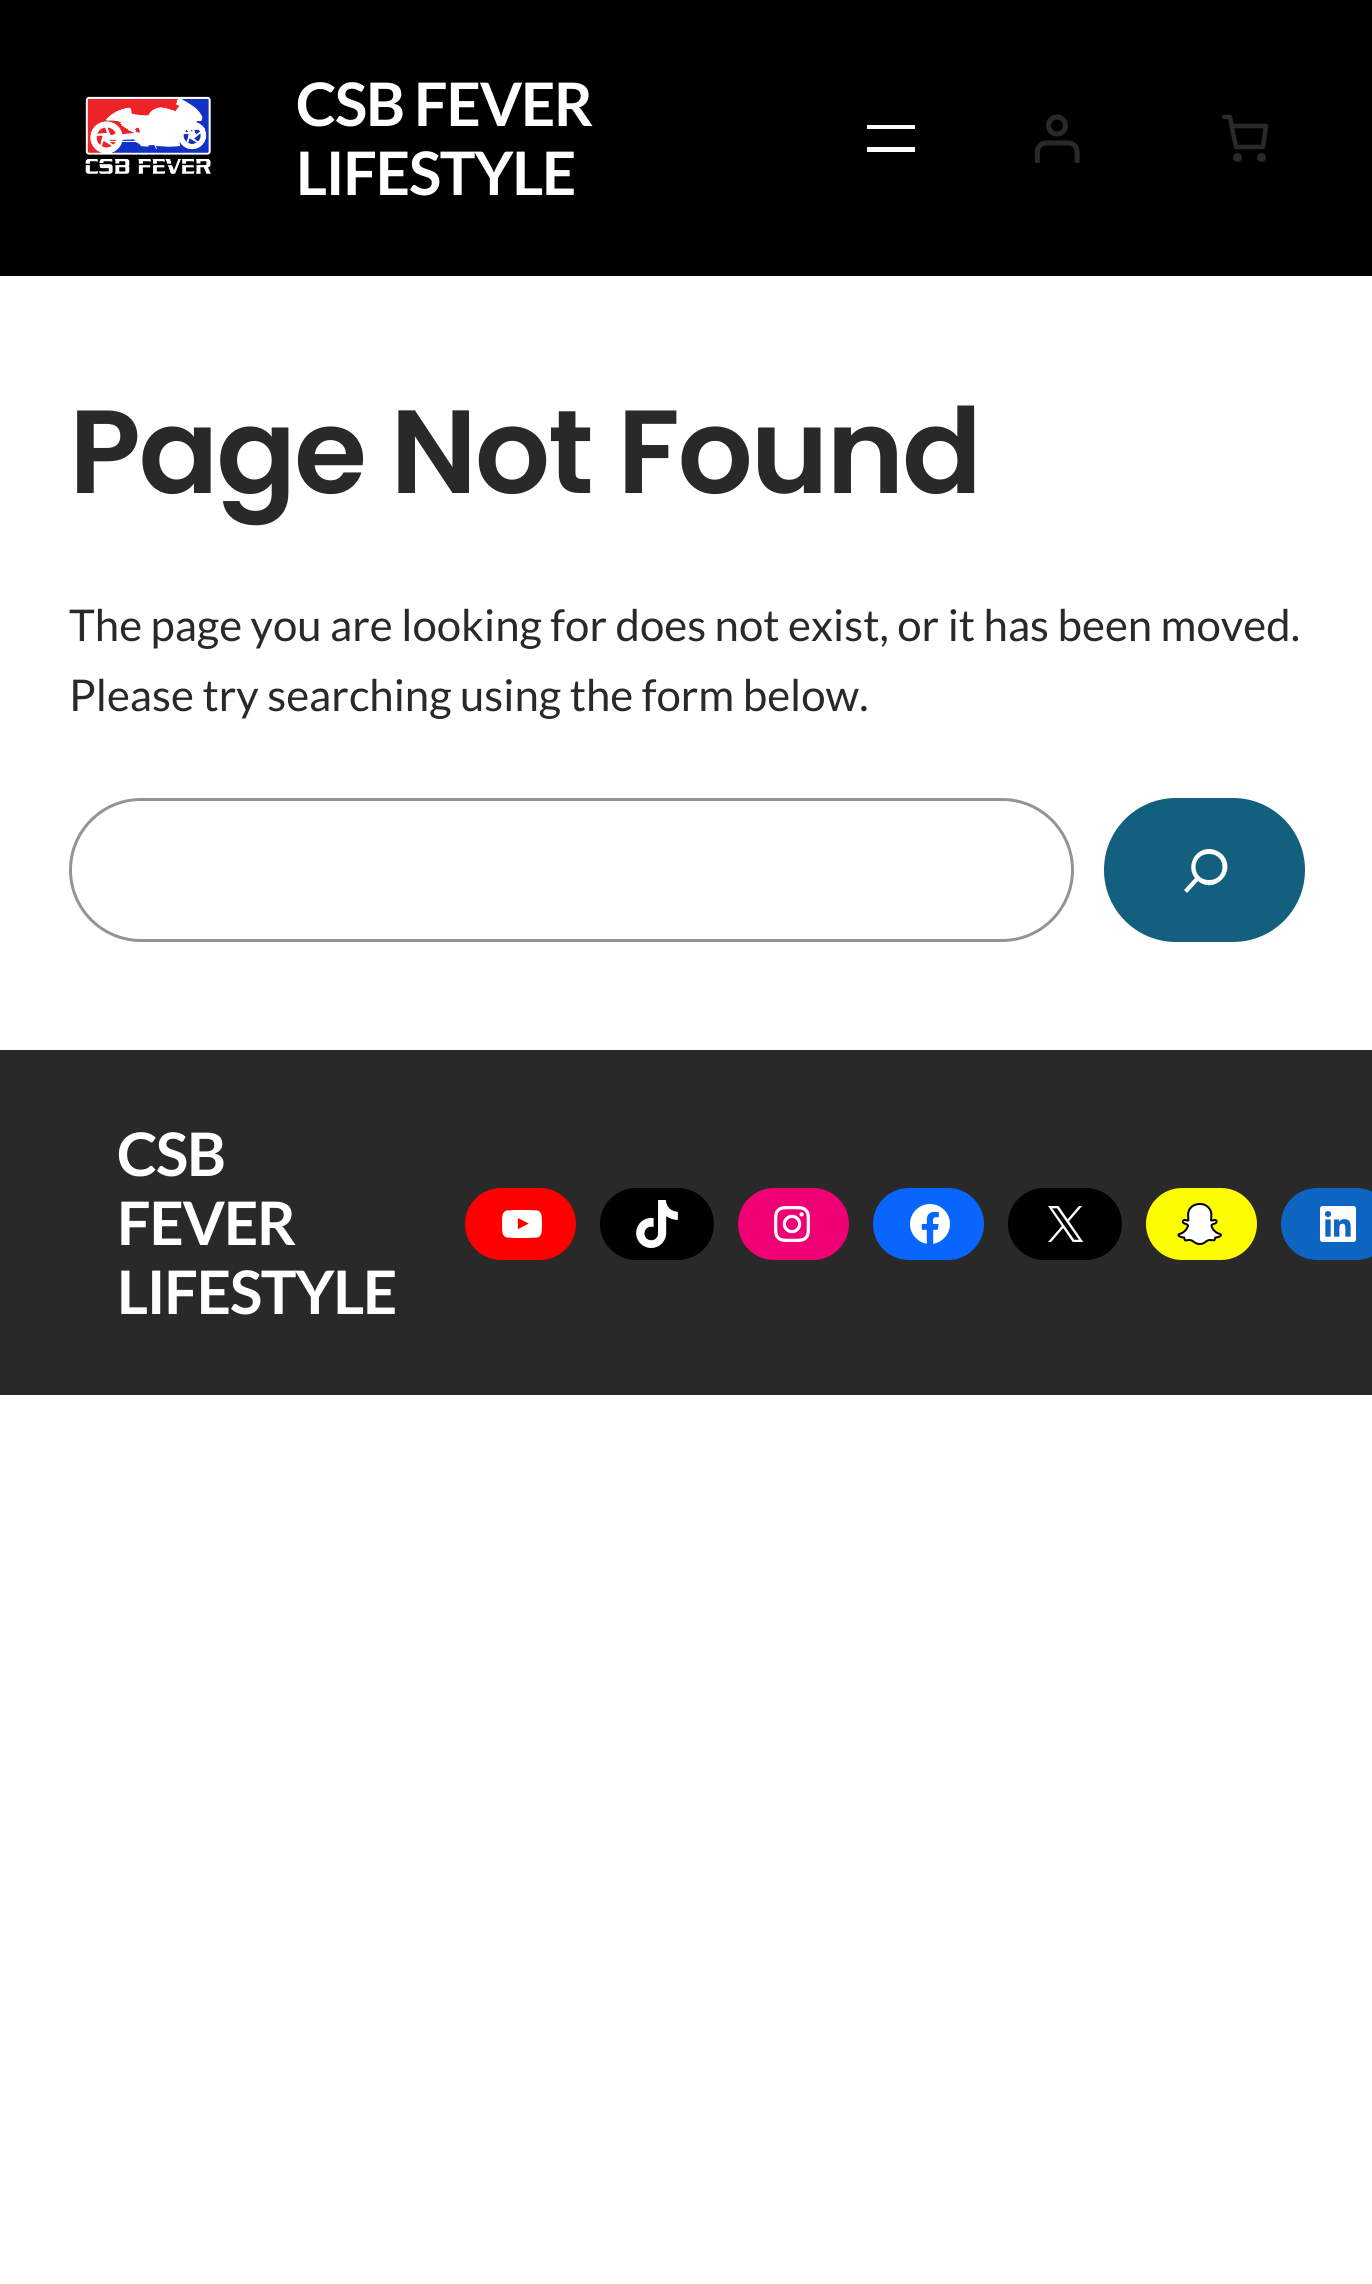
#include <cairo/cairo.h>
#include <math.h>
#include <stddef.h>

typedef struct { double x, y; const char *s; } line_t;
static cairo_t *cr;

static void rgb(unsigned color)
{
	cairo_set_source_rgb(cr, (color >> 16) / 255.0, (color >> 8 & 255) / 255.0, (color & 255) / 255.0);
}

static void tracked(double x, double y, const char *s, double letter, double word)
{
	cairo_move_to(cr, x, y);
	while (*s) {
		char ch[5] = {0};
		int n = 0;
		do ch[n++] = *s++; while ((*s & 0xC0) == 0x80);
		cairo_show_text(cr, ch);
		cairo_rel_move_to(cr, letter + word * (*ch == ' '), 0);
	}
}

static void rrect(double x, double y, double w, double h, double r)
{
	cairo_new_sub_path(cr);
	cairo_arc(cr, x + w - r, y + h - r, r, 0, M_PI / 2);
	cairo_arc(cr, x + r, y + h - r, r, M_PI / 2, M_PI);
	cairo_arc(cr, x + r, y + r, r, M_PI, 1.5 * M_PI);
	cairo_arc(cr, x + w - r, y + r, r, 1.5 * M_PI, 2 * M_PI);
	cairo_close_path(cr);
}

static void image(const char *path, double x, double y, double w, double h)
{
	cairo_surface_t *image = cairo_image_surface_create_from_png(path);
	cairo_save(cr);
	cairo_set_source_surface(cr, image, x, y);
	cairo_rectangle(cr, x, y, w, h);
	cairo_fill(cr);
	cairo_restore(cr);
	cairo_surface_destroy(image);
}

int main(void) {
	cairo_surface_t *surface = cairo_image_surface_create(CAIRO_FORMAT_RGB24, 1372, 2284);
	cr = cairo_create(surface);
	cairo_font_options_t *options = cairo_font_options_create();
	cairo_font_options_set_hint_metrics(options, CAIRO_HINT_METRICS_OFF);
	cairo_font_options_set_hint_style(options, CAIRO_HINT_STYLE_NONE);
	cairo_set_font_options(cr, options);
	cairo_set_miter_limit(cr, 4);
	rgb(0xffffff);
	cairo_paint(cr);
	rgb(0x000000);
	cairo_rectangle(cr, 0, 0, 1372, 276);
	cairo_fill(cr);
	image("img/1.png", 85, 96, 126, 78);
	rgb(0xffffff);
	cairo_rectangle(cr, 867, 125, 48, 4);
	cairo_fill(cr);
	cairo_rectangle(cr, 867, 147, 48, 5);
	cairo_fill(cr);
	image("img/2.png", 1034, 114, 46, 49);
	image("img/3.png", 1221, 114, 48, 48);
	rrect(70.5, 799.5, 1002, 141, 70.5);
	rgb(0x949494);
	cairo_set_line_width(cr, 3);
	cairo_stroke(cr);
	rgb(0x13607e);
	rrect(1104, 798, 201, 144, 72);
	cairo_fill(cr);
	rgb(0xffffff);
	cairo_new_path(cr);
	cairo_move_to(cr, 1209, 849);
	cairo_curve_to(cr, 1194, 849, 1186, 867, 1195, 878);
	cairo_line_to(cr, 1184, 890);
	cairo_line_to(cr, 1187, 893);
	cairo_line_to(cr, 1198, 881);
	cairo_curve_to(cr, 1215, 895, 1238, 871, 1222, 854);
	cairo_curve_to(cr, 1218, 851, 1214, 849, 1209, 849);
	cairo_close_path(cr);
	cairo_move_to(cr, 1209, 880);
	cairo_curve_to(cr, 1191, 880, 1191, 854, 1209, 854);
	cairo_curve_to(cr, 1227, 854, 1227, 880, 1209, 880);
	cairo_close_path(cr);
	cairo_fill(cr);
	rgb(0x292929);
	cairo_rectangle(cr, 0, 1050, 1372, 345);
	cairo_fill(cr);
	rgb(0xff0000);
	rrect(465, 1188, 111, 72, 36);
	cairo_fill(cr);
	image("img/4.png", 502, 1209, 40, 30);
	rgb(0x000000);
	rrect(600, 1188, 114, 72, 36);
	cairo_fill(cr);
	image("img/5.png", 636, 1200, 42, 48);
	rgb(0xf00075);
	rrect(738, 1188, 111, 72, 36);
	cairo_fill(cr);
	image("img/6.png", 774, 1206, 36, 36);
	rgb(0x0866ff);
	rrect(873, 1188, 111, 72, 36);
	cairo_fill(cr);
	image("img/7.png", 910, 1204, 40, 40);
	rgb(0x000000);
	rrect(1008, 1188, 114, 72, 36);
	cairo_fill(cr);
	image("img/8.png", 1048, 1206, 36, 36);
	rgb(0xfefc00);
	rrect(1146, 1188, 111, 72, 36);
	cairo_fill(cr);
	image("img/9.png", 1177, 1203, 45, 42);
	rgb(0x0d66c2);
	rrect(1281, 1188, 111, 72, 36);
	cairo_fill(cr);
	image("img/10.png", 1320, 1206, 36, 36);
	cairo_select_font_face(cr, "Lato", CAIRO_FONT_SLANT_NORMAL, CAIRO_FONT_WEIGHT_BOLD);
	cairo_set_font_size(cr, 60);
	rgb(0xffffff);
	tracked(296, 126, "CSB FEVER", -1.25, 0);
	tracked(296, 195, "LIFESTYLE", -1.25, 0);
	cairo_select_font_face(cr, "Poppins SemiBold", CAIRO_FONT_SLANT_NORMAL, CAIRO_FONT_WEIGHT_NORMAL);
	cairo_set_font_size(cr, 118.25);
	rgb(0x292929);
	tracked(69, 493, "Page Not Found", -2.4, 0);
	cairo_select_font_face(cr, "Lato", CAIRO_FONT_SLANT_NORMAL, CAIRO_FONT_WEIGHT_NORMAL);
	cairo_set_font_size(cr, 43.75);
	cairo_move_to(cr, 69, 641);
	cairo_show_text(cr, "The page you are looking for does not exist, or it has been moved.");
	cairo_move_to(cr, 69, 711);
	cairo_show_text(cr, "Please try searching using the form below.");
	cairo_select_font_face(cr, "Lato", CAIRO_FONT_SLANT_NORMAL, CAIRO_FONT_WEIGHT_BOLD);
	cairo_set_font_size(cr, 60);
	rgb(0xffffff);
	{
		static const line_t items[] = {
			{117, 1176, "CSB"},
			{117, 1245, "FEVER"},
			{117, 1314, "LIFESTYLE"},
		};
		for (size_t i = 0; i < sizeof items / sizeof *items; i++) {
			tracked(items[i].x, items[i].y, items[i].s, -1.25, 0);
		}
	}
	cairo_surface_write_to_png(surface, "page.png");
	cairo_font_options_destroy(options);
	cairo_destroy(cr);
	cairo_surface_destroy(surface);
	return 0;
}
